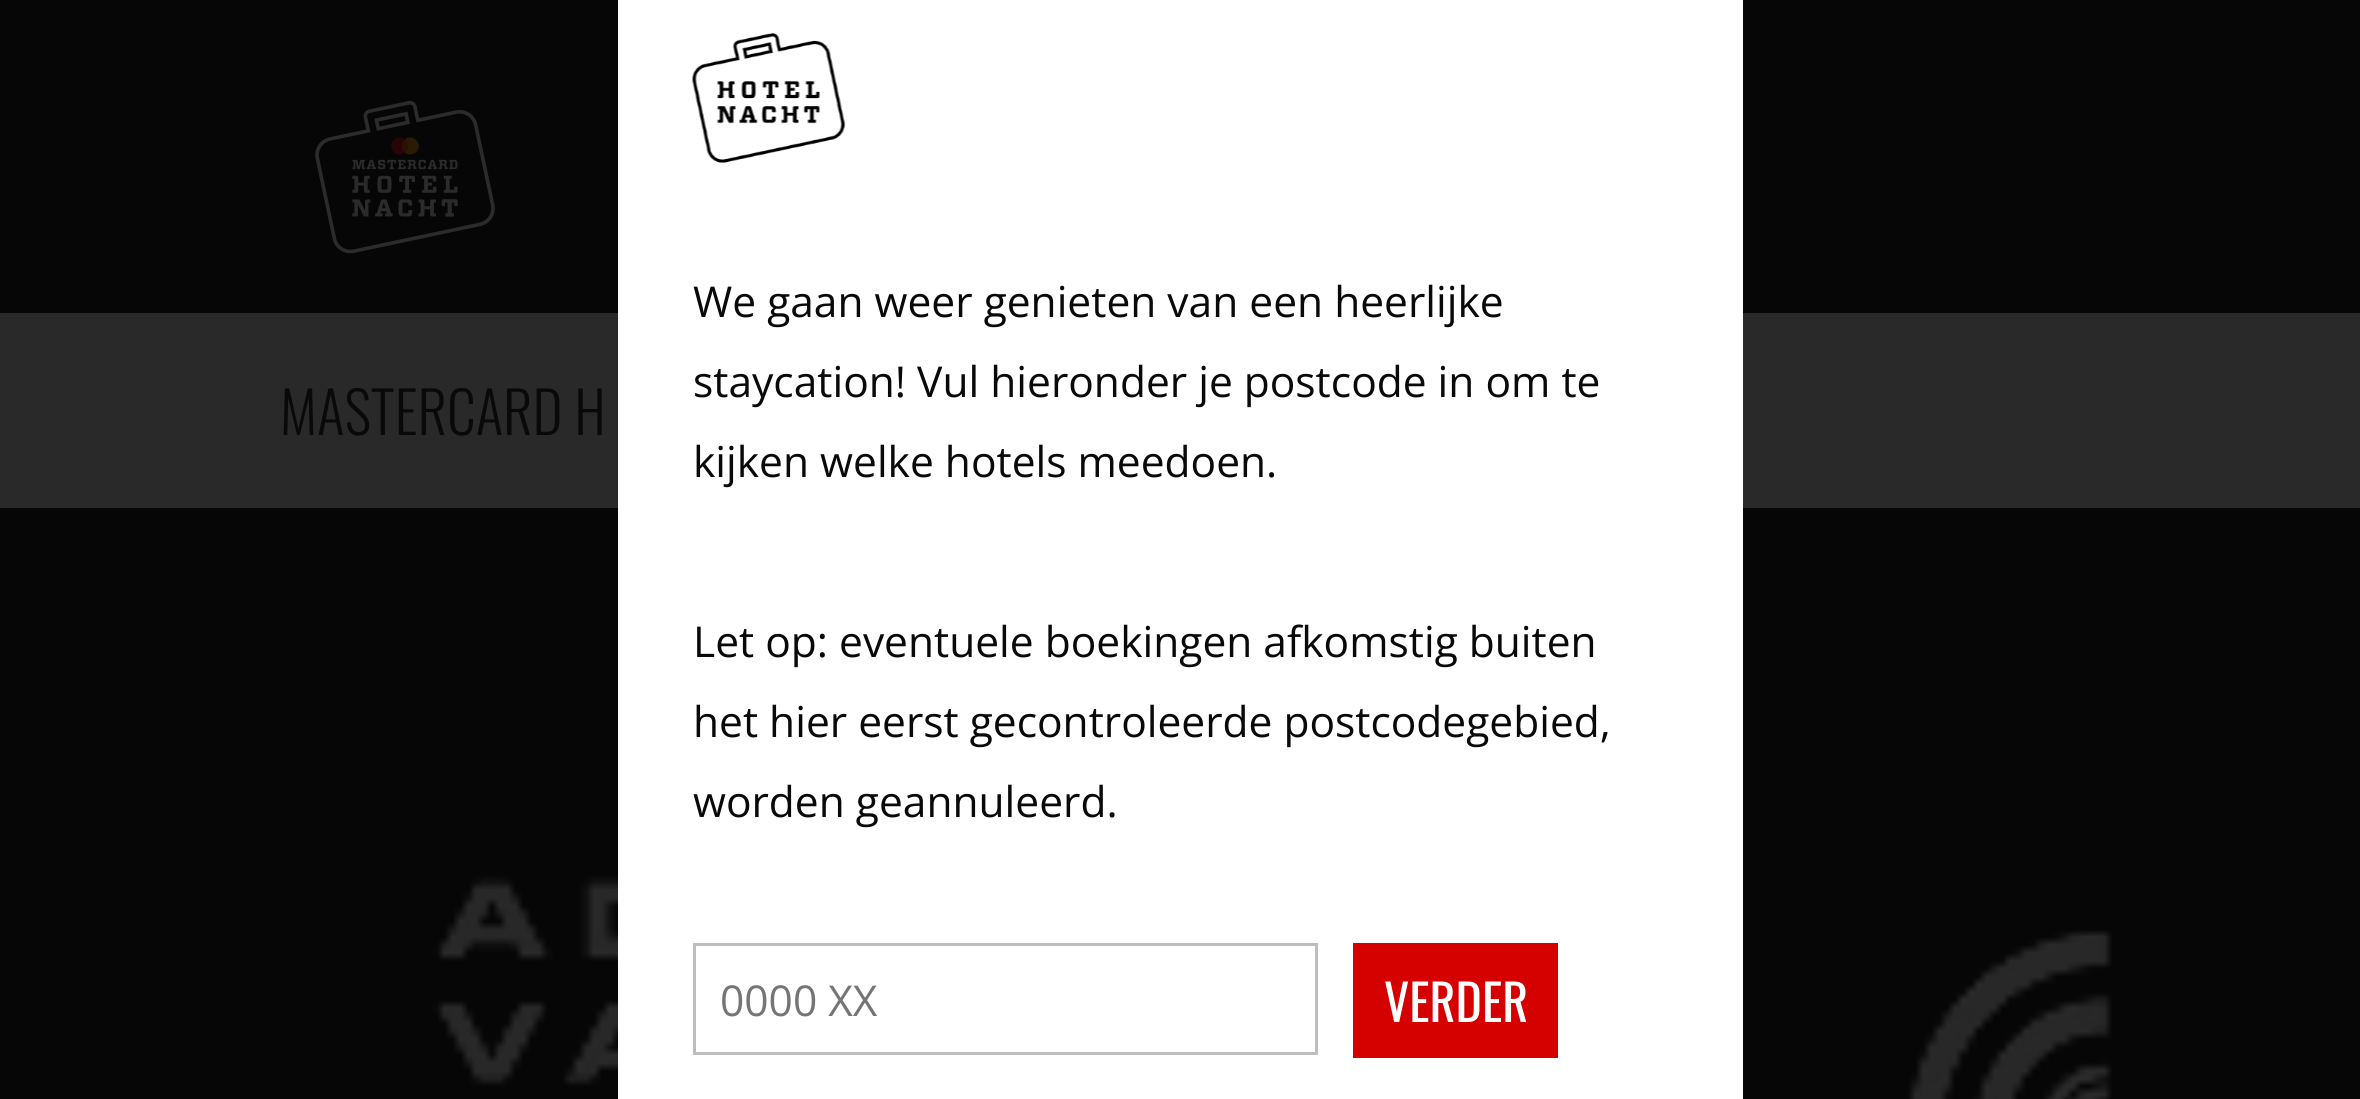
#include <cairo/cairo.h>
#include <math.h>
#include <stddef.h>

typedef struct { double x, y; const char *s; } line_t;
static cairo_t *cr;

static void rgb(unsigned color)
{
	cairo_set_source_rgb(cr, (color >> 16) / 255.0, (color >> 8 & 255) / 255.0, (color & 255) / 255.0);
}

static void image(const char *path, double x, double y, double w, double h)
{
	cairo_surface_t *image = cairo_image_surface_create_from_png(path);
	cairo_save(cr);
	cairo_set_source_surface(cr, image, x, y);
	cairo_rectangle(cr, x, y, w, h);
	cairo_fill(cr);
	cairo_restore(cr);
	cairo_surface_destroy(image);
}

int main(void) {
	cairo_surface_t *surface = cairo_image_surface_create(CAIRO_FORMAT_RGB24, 2360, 1099);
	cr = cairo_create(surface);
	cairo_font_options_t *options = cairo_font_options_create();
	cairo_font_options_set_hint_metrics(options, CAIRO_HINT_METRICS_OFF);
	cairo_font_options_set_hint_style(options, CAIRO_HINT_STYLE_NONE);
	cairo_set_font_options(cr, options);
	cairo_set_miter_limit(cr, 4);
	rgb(0x060606);
	cairo_paint(cr);
	image("img/1.png", 315, 100, 180, 154);
	rgb(0x292929);
	cairo_rectangle(cr, 0, 313, 2360, 195);
	cairo_fill(cr);
	image("img/3.png", 431, 875, 1681, 224);
	rgb(0xffffff);
	cairo_rectangle(cr, 618, 0, 1125, 1099);
	cairo_fill(cr);
	image("img/2.png", 692, 33, 154, 130);
	cairo_rectangle(cr, 694.5, 944.5, 622, 109);
	rgb(0xbdbdbd);
	cairo_set_line_width(cr, 3);
	cairo_stroke(cr);
	rgb(0xd50000);
	cairo_rectangle(cr, 1353, 943, 205, 115);
	cairo_fill(cr);
	cairo_select_font_face(cr, "Oswald Light", CAIRO_FONT_SLANT_NORMAL, CAIRO_FONT_WEIGHT_NORMAL);
	cairo_set_font_size(cr, 57.5);
	rgb(0x090909);
	cairo_move_to(cr, 280, 435);
	cairo_show_text(cr, "MASTERCARD H");
	cairo_select_font_face(cr, "Open Sans", CAIRO_FONT_SLANT_NORMAL, CAIRO_FONT_WEIGHT_NORMAL);
	cairo_set_font_size(cr, 42.5);
	{
		static const line_t items[] = {
			{693, 317, "We gaan weer genieten van een heerlijke"},
			{693, 397, "staycation! Vul hieronder je postcode in om te"},
			{693, 477, "kijken welke hotels meedoen."},
			{693, 657, "Let op: eventuele boekingen afkomstig buiten"},
			{693, 737, "het hier eerst gecontroleerde postcodegebied,"},
			{693, 817, "worden geannuleerd."},
		};
		for (size_t i = 0; i < sizeof items / sizeof *items; i++) {
			cairo_move_to(cr, items[i].x, items[i].y);
			cairo_show_text(cr, items[i].s);
		}
	}
	rgb(0x757575);
	cairo_move_to(cr, 720, 1016);
	cairo_show_text(cr, "0000 XX");
	cairo_select_font_face(cr, "Oswald", CAIRO_FONT_SLANT_NORMAL, CAIRO_FONT_WEIGHT_NORMAL);
	cairo_set_font_size(cr, 50);
	rgb(0xffffff);
	cairo_move_to(cr, 1384, 1022);
	cairo_show_text(cr, "VERDER");
	cairo_surface_write_to_png(surface, "page.png");
	cairo_font_options_destroy(options);
	cairo_destroy(cr);
	cairo_surface_destroy(surface);
	return 0;
}
